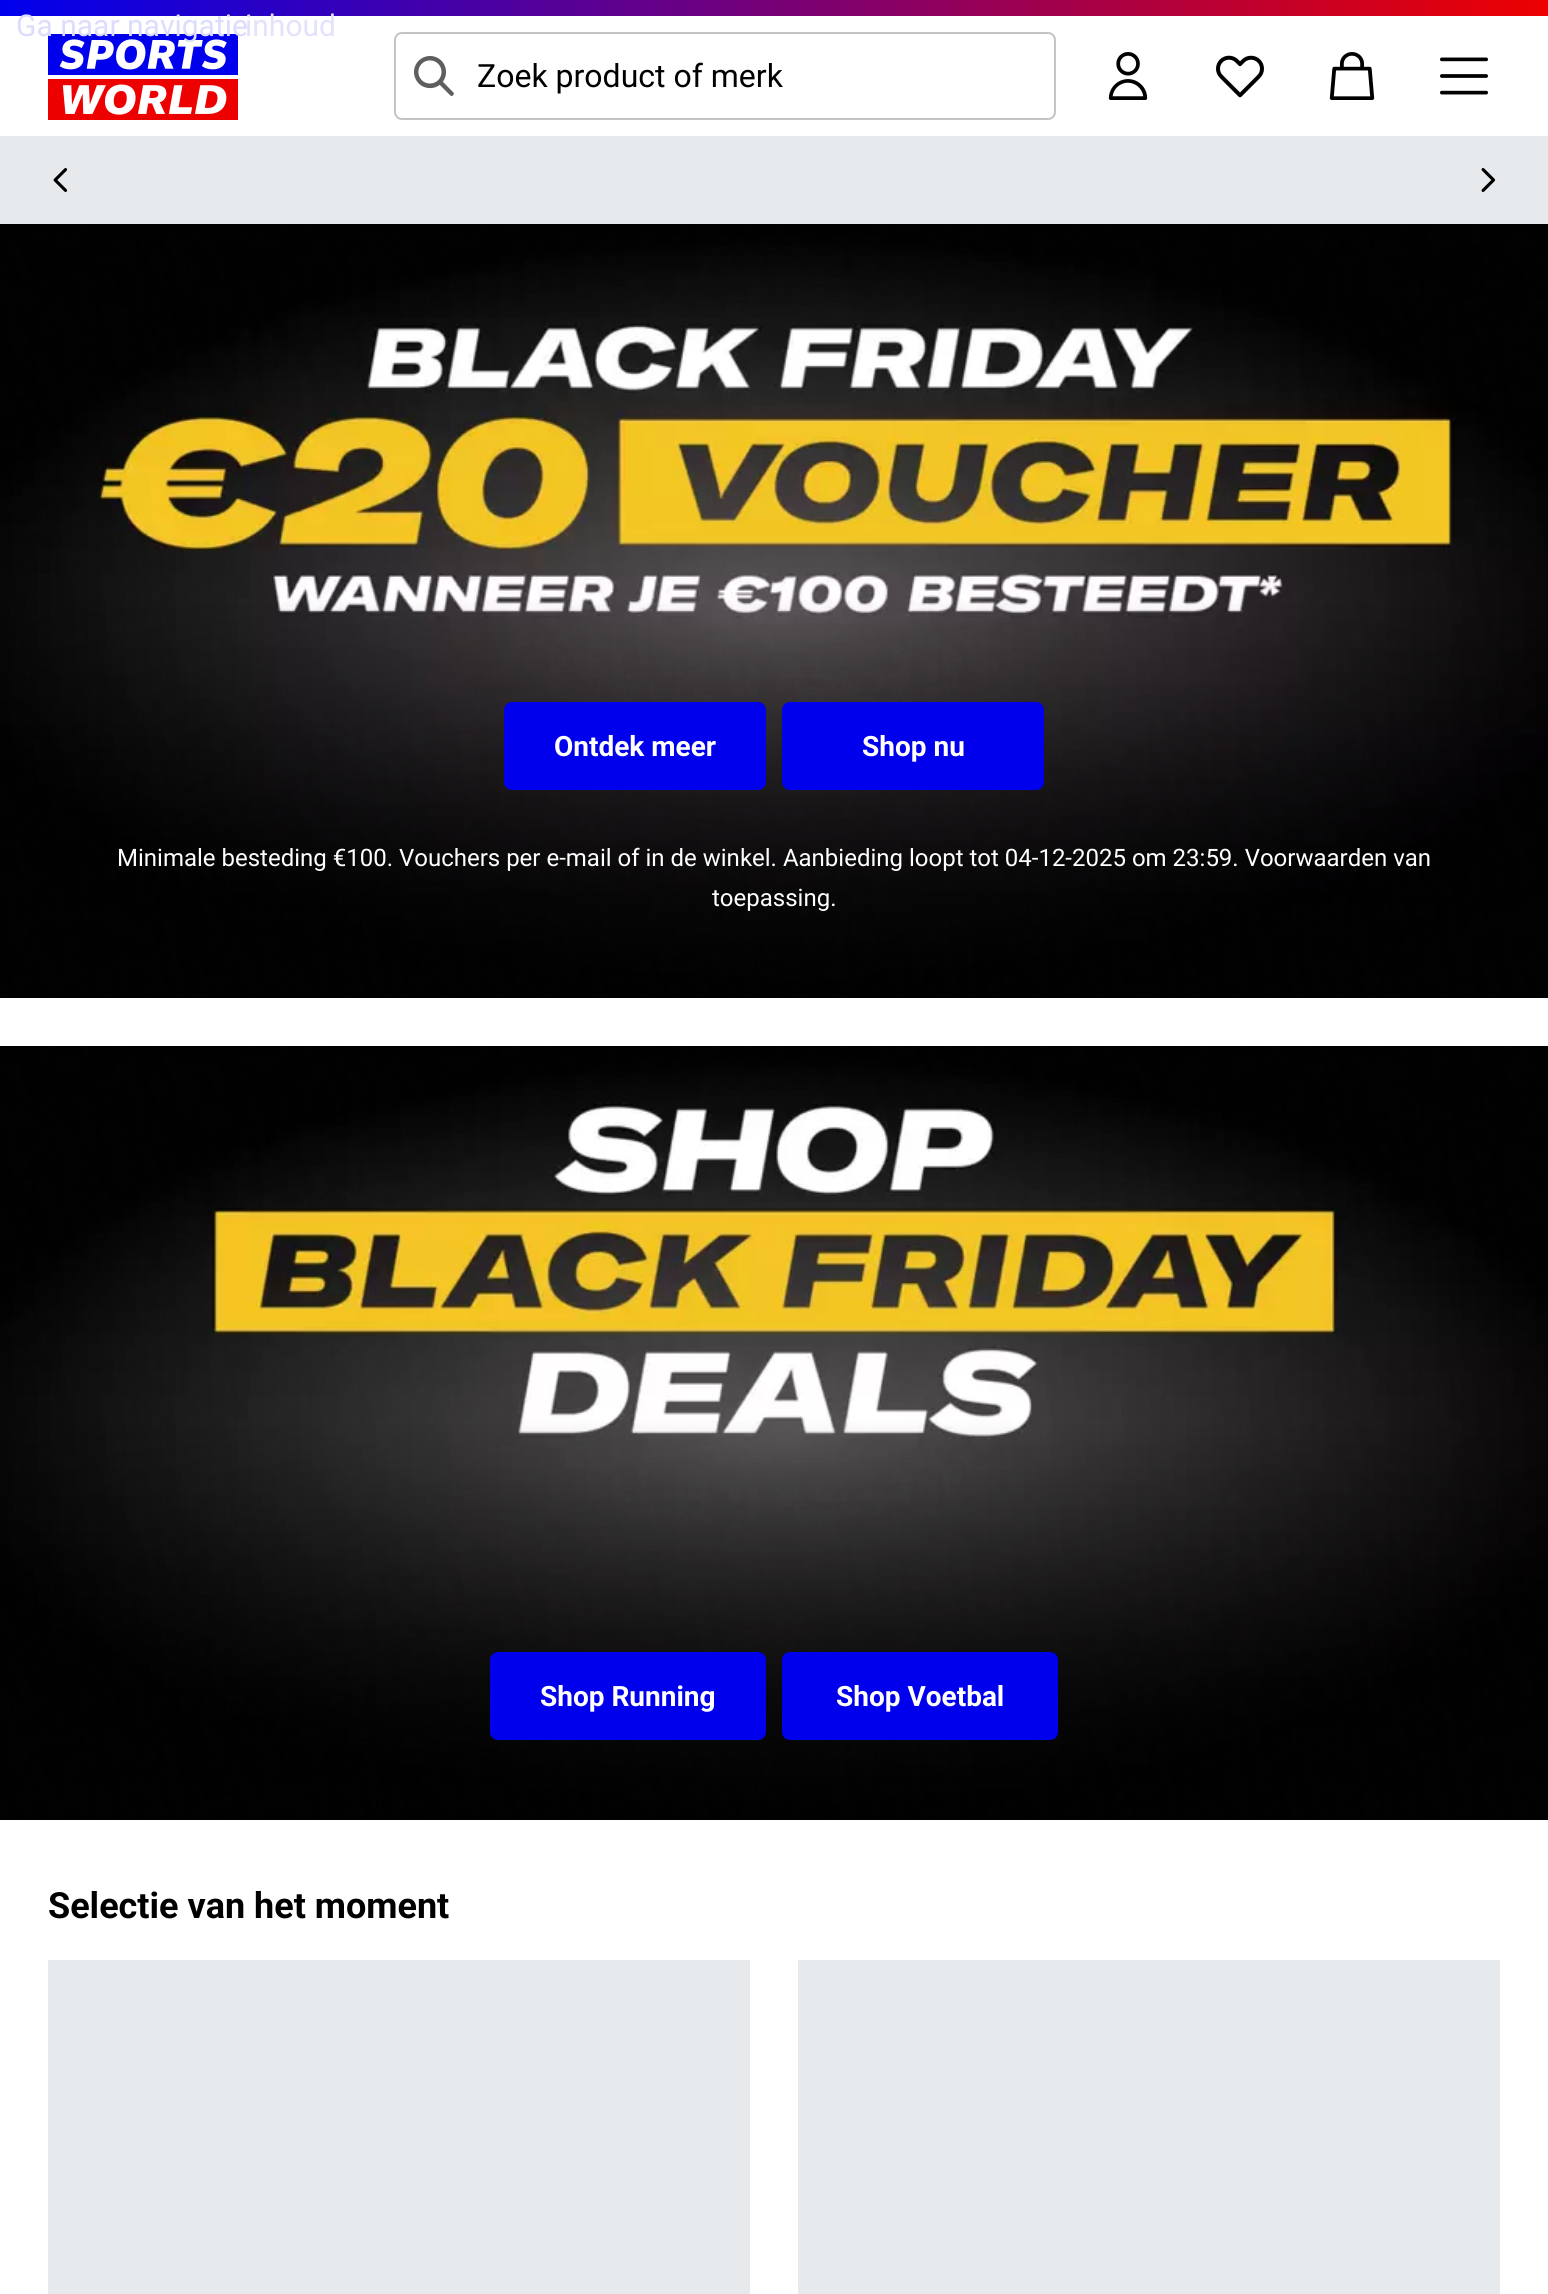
#include <cairo/cairo.h>
#include <math.h>
#include <stddef.h>

static cairo_t *cr;

static void rgb(unsigned color)
{
	cairo_set_source_rgb(cr, (color >> 16) / 255.0, (color >> 8 & 255) / 255.0, (color & 255) / 255.0);
}

static void rrect(double x, double y, double w, double h, double r)
{
	cairo_new_sub_path(cr);
	cairo_arc(cr, x + w - r, y + h - r, r, 0, M_PI / 2);
	cairo_arc(cr, x + r, y + h - r, r, M_PI / 2, M_PI);
	cairo_arc(cr, x + r, y + r, r, M_PI, 1.5 * M_PI);
	cairo_arc(cr, x + w - r, y + r, r, 1.5 * M_PI, 2 * M_PI);
	cairo_close_path(cr);
}

static void image(const char *path, double x, double y, double w, double h)
{
	cairo_surface_t *image = cairo_image_surface_create_from_png(path);
	cairo_save(cr);
	cairo_set_source_surface(cr, image, x, y);
	cairo_rectangle(cr, x, y, w, h);
	cairo_fill(cr);
	cairo_restore(cr);
	cairo_surface_destroy(image);
}

int main(void) {
	cairo_surface_t *surface = cairo_image_surface_create(CAIRO_FORMAT_RGB24, 1548, 2294);
	cr = cairo_create(surface);
	cairo_font_options_t *options = cairo_font_options_create();
	cairo_font_options_set_hint_metrics(options, CAIRO_HINT_METRICS_OFF);
	cairo_font_options_set_hint_style(options, CAIRO_HINT_STYLE_NONE);
	cairo_set_font_options(cr, options);
	cairo_set_miter_limit(cr, 4);
	rgb(0xffffff);
	cairo_paint(cr);
	image("img/1.png", 0, 0, 1548, 16);
	image("img/2.png", 48, 34, 190, 86);
	rrect(395, 33, 660, 86, 7);
	rgb(0xc4c4c4);
	cairo_stroke(cr);
	image("img/3.png", 414, 56, 40, 40);
	image("img/4.png", 1108, 52, 40, 48);
	image("img/5.png", 1216, 55, 48, 43);
	image("img/6.png", 1329, 52, 46, 48);
	image("img/7.png", 1440, 57, 48, 38);
	rgb(0xe7eaec);
	cairo_rectangle(cr, 0, 136, 1548, 88);
	cairo_fill(cr);
	image("img/8.png", 53, 168, 15, 24);
	image("img/9.png", 1481, 168, 15, 24);
	image("img/10.png", 0, 224, 1548, 774);
	rgb(0x0000ed);
	rrect(505, 703, 260, 86, 7);
	cairo_fill_preserve(cr);
	cairo_stroke(cr);
	rrect(783, 703, 260, 86, 7);
	cairo_fill_preserve(cr);
	cairo_stroke(cr);
	image("img/11.png", 0, 1046, 1548, 774);
	rrect(491, 1653, 274, 86, 7);
	cairo_fill_preserve(cr);
	cairo_stroke(cr);
	rrect(783, 1653, 274, 86, 7);
	cairo_fill_preserve(cr);
	cairo_stroke(cr);
	rgb(0xe7eaec);
	cairo_rectangle(cr, 48, 1960, 702, 334);
	cairo_fill(cr);
	cairo_rectangle(cr, 798, 1960, 702, 334);
	cairo_fill(cr);
	cairo_select_font_face(cr, "Roboto", CAIRO_FONT_SLANT_NORMAL, CAIRO_FONT_WEIGHT_NORMAL);
	cairo_set_font_size(cr, 30);
	rgb(0xdcdcfc);
	cairo_move_to(cr, 16, 36);
	cairo_show_text(cr, "Ga naar navigatie");
	rgb(0xe3e2fc);
	cairo_move_to(cr, 245, 36);
	cairo_show_text(cr, "inhoud");
	cairo_set_font_size(cr, 32);
	rgb(0x000000);
	cairo_move_to(cr, 477, 87);
	cairo_show_text(cr, "Zoek product of merk");
	cairo_select_font_face(cr, "Roboto", CAIRO_FONT_SLANT_NORMAL, CAIRO_FONT_WEIGHT_BOLD);
	cairo_set_font_size(cr, 28);
	rgb(0xffffff);
	cairo_move_to(cr, 554, 756);
	cairo_show_text(cr, "Ontdek meer");
	cairo_move_to(cr, 862, 756);
	cairo_show_text(cr, "Shop nu");
	cairo_select_font_face(cr, "Roboto", CAIRO_FONT_SLANT_NORMAL, CAIRO_FONT_WEIGHT_NORMAL);
	cairo_set_font_size(cr, 24);
	cairo_move_to(cr, 117, 866);
	cairo_show_text(cr, "Minimale besteding €100. Vouchers per e-mail of in de winkel. Aanbieding loopt tot 04-12-2025 om 23:59. Voorwaarden van");
	cairo_move_to(cr, 712, 906);
	cairo_show_text(cr, "toepassing.");
	cairo_select_font_face(cr, "Roboto", CAIRO_FONT_SLANT_NORMAL, CAIRO_FONT_WEIGHT_BOLD);
	cairo_set_font_size(cr, 28);
	cairo_move_to(cr, 540, 1706);
	cairo_show_text(cr, "Shop Running");
	cairo_move_to(cr, 836, 1706);
	cairo_show_text(cr, "Shop Voetbal");
	cairo_set_font_size(cr, 36);
	rgb(0x000000);
	cairo_move_to(cr, 48, 1918);
	cairo_show_text(cr, "Selectie van het moment");
	cairo_surface_write_to_png(surface, "page.png");
	cairo_font_options_destroy(options);
	cairo_destroy(cr);
	cairo_surface_destroy(surface);
	return 0;
}
